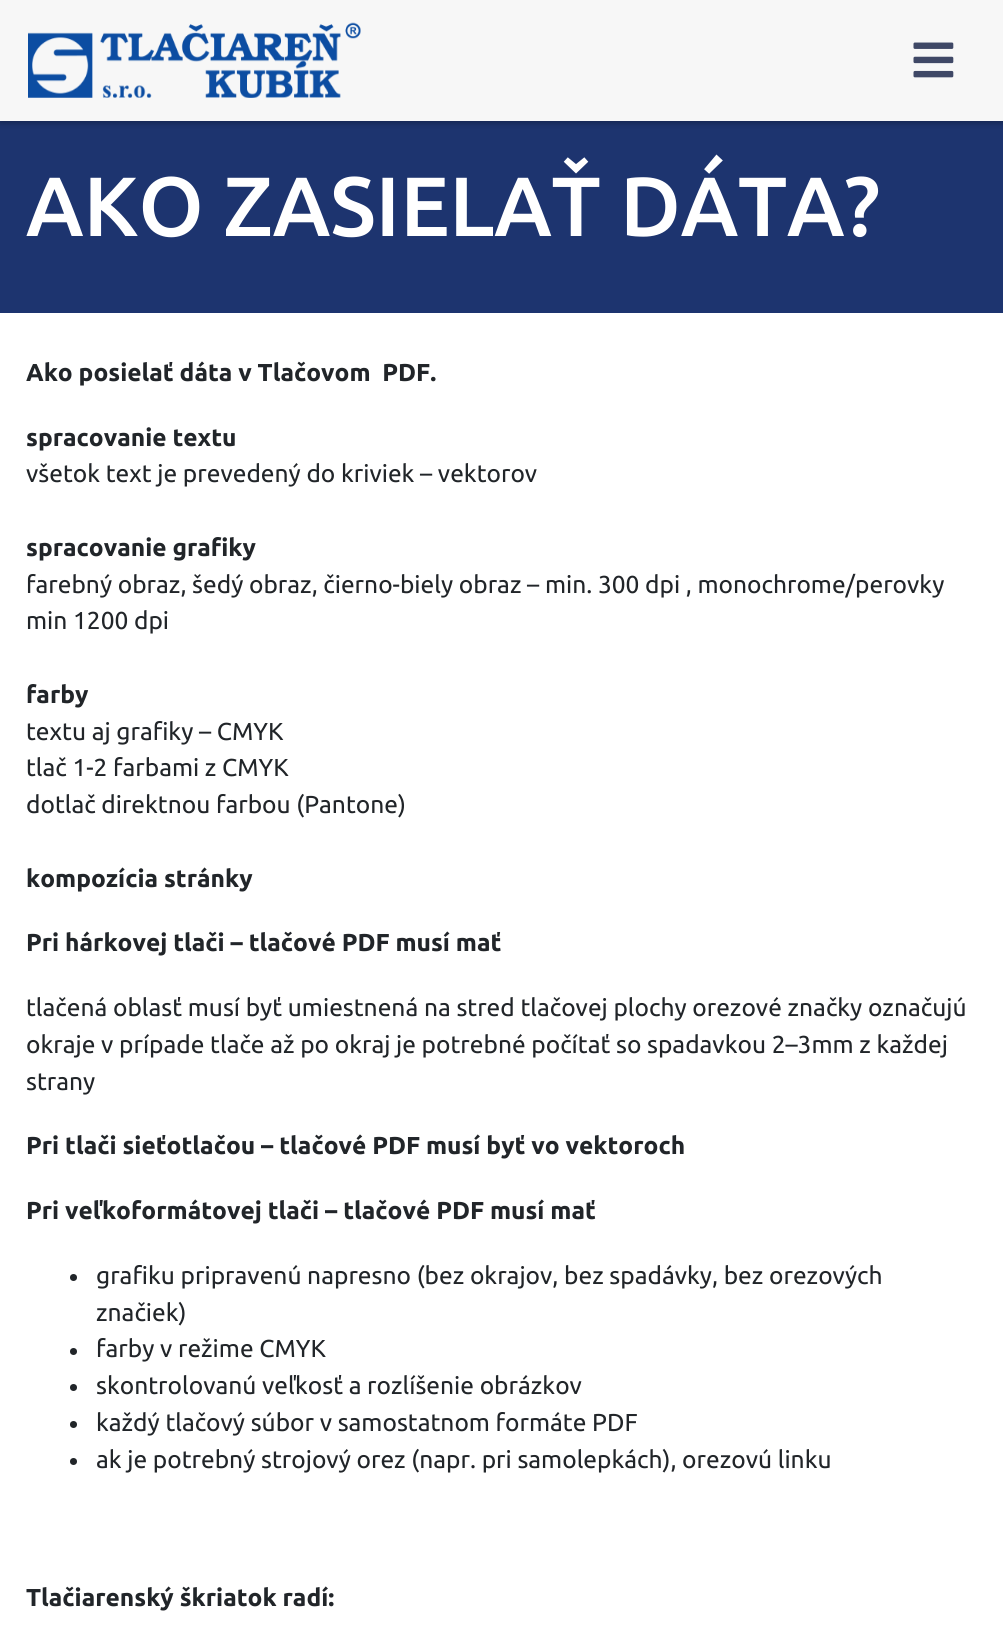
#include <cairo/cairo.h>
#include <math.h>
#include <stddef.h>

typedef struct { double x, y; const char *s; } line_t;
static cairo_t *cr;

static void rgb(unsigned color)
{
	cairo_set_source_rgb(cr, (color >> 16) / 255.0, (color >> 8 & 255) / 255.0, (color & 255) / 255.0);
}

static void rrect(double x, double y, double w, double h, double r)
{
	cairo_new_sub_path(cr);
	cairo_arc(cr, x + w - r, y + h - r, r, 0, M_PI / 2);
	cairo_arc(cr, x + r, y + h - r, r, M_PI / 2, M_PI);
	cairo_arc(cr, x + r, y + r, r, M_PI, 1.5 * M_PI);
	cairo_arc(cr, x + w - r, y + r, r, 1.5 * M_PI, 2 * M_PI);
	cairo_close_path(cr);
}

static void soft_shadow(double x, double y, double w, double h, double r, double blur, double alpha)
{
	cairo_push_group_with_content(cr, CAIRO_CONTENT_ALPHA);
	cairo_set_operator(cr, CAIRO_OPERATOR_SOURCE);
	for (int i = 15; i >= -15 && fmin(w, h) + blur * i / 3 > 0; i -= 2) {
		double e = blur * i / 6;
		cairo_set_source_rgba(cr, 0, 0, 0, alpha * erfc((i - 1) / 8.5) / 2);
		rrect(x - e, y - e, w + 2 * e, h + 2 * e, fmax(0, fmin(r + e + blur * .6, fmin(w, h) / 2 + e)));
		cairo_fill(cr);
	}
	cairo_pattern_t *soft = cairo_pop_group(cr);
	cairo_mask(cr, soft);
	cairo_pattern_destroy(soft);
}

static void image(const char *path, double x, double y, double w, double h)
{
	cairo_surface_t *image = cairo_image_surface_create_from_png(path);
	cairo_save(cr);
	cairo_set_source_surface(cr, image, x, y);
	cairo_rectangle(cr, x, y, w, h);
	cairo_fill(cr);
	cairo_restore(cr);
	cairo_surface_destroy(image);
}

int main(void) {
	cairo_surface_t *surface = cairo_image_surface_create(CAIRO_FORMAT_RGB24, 1003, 1632);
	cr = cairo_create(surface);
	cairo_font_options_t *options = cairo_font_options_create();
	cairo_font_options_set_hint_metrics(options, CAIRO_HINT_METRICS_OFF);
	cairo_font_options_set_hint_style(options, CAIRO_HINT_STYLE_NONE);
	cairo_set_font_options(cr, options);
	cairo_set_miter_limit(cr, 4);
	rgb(0xffffff);
	cairo_paint(cr);
	rgb(0x1d346f);
	cairo_rectangle(cr, 0, 121, 1003, 192);
	cairo_fill(cr);
	rgb(0x000000);
	soft_shadow(0, 0, 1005, 121, 0, 4.5, 0.44);
	rgb(0xf7f7f7);
	cairo_rectangle(cr, 0, 0, 1003, 121);
	cairo_fill(cr);
	image("img/1.png", 28, 22, 333, 76);
	image("img/2.png", 913, 42, 41, 36);
	rgb(0x212529);
	cairo_arc(cr, 73.5, 1277.5, 3.5, 0, 2 * M_PI);
	cairo_fill(cr);
	cairo_arc(cr, 73.5, 1351.5, 3.5, 0, 2 * M_PI);
	cairo_fill(cr);
	cairo_arc(cr, 73.5, 1387.5, 3.5, 0, 2 * M_PI);
	cairo_fill(cr);
	cairo_arc(cr, 73.5, 1424.5, 3.5, 0, 2 * M_PI);
	cairo_fill(cr);
	cairo_arc(cr, 73.5, 1461.5, 3.5, 0, 2 * M_PI);
	cairo_fill(cr);
	cairo_select_font_face(cr, "Ubuntu Medium", CAIRO_FONT_SLANT_NORMAL, CAIRO_FONT_WEIGHT_NORMAL);
	cairo_set_font_size(cr, 84);
	rgb(0xffffff);
	cairo_move_to(cr, 26, 236);
	cairo_show_text(cr, "AKO ZASIELAŤ DÁTA?");
	cairo_select_font_face(cr, "Ubuntu", CAIRO_FONT_SLANT_NORMAL, CAIRO_FONT_WEIGHT_BOLD);
	cairo_set_font_size(cr, 24.5);
	rgb(0x212529);
	cairo_move_to(cr, 26, 381);
	cairo_show_text(cr, "Ako posielať dáta v Tlačovom  PDF.");
	cairo_move_to(cr, 26, 446);
	cairo_show_text(cr, "spracovanie textu");
	cairo_select_font_face(cr, "Ubuntu", CAIRO_FONT_SLANT_NORMAL, CAIRO_FONT_WEIGHT_NORMAL);
	cairo_move_to(cr, 26, 482);
	cairo_show_text(cr, "všetok text je prevedený do kriviek – vektorov");
	cairo_select_font_face(cr, "Ubuntu", CAIRO_FONT_SLANT_NORMAL, CAIRO_FONT_WEIGHT_BOLD);
	cairo_move_to(cr, 26, 556);
	cairo_show_text(cr, "spracovanie grafiky");
	cairo_select_font_face(cr, "Ubuntu", CAIRO_FONT_SLANT_NORMAL, CAIRO_FONT_WEIGHT_NORMAL);
	cairo_move_to(cr, 26, 593);
	cairo_show_text(cr, "farebný obraz, šedý obraz, čierno-biely obraz – min. 300 dpi , monochrome/perovky");
	cairo_move_to(cr, 26, 629);
	cairo_show_text(cr, "min 1200 dpi");
	cairo_select_font_face(cr, "Ubuntu", CAIRO_FONT_SLANT_NORMAL, CAIRO_FONT_WEIGHT_BOLD);
	cairo_move_to(cr, 26, 703);
	cairo_show_text(cr, "farby");
	cairo_select_font_face(cr, "Ubuntu", CAIRO_FONT_SLANT_NORMAL, CAIRO_FONT_WEIGHT_NORMAL);
	{
		static const line_t items[] = {
			{26, 740, "textu aj grafiky – CMYK"},
			{26, 776, "tlač 1-2 farbami z CMYK"},
			{26, 813, "dotlač direktnou farbou (Pantone)"},
		};
		for (size_t i = 0; i < sizeof items / sizeof *items; i++) {
			cairo_move_to(cr, items[i].x, items[i].y);
			cairo_show_text(cr, items[i].s);
		}
	}
	cairo_select_font_face(cr, "Ubuntu", CAIRO_FONT_SLANT_NORMAL, CAIRO_FONT_WEIGHT_BOLD);
	cairo_move_to(cr, 26, 887);
	cairo_show_text(cr, "kompozícia stránky");
	cairo_move_to(cr, 26, 951);
	cairo_show_text(cr, "Pri hárkovej tlači – tlačové PDF musí mať");
	cairo_select_font_face(cr, "Ubuntu", CAIRO_FONT_SLANT_NORMAL, CAIRO_FONT_WEIGHT_NORMAL);
	{
		static const line_t items[] = {
			{26, 1016, "tlačená oblasť musí byť umiestnená na stred tlačovej plochy orezové značky označujú"},
			{26, 1053, "okraje v prípade tlače až po okraj je potrebné počítať so spadavkou 2–3mm z každej"},
			{26, 1090, "strany"},
		};
		for (size_t i = 0; i < sizeof items / sizeof *items; i++) {
			cairo_move_to(cr, items[i].x, items[i].y);
			cairo_show_text(cr, items[i].s);
		}
	}
	cairo_select_font_face(cr, "Ubuntu", CAIRO_FONT_SLANT_NORMAL, CAIRO_FONT_WEIGHT_BOLD);
	cairo_move_to(cr, 26, 1154);
	cairo_show_text(cr, "Pri tlači sieťotlačou – tlačové PDF musí byť vo vektoroch");
	cairo_move_to(cr, 26, 1219);
	cairo_show_text(cr, "Pri veľkoformátovej tlači – tlačové PDF musí mať");
	cairo_select_font_face(cr, "Ubuntu", CAIRO_FONT_SLANT_NORMAL, CAIRO_FONT_WEIGHT_NORMAL);
	{
		static const line_t items[] = {
			{96, 1284, "grafiku pripravenú napresno (bez okrajov, bez spadávky, bez orezových"},
			{96, 1321, "značiek)"},
			{96, 1357, "farby v režime CMYK"},
			{96, 1394, "skontrolovanú veľkosť a rozlíšenie obrázkov"},
			{96, 1431, "každý tlačový súbor v samostatnom formáte PDF"},
			{96, 1468, "ak je potrebný strojový orez (napr. pri samolepkách), orezovú linku"},
		};
		for (size_t i = 0; i < sizeof items / sizeof *items; i++) {
			cairo_move_to(cr, items[i].x, items[i].y);
			cairo_show_text(cr, items[i].s);
		}
	}
	cairo_select_font_face(cr, "Ubuntu", CAIRO_FONT_SLANT_NORMAL, CAIRO_FONT_WEIGHT_BOLD);
	cairo_move_to(cr, 26, 1606);
	cairo_show_text(cr, "Tlačiarenský škriatok radí:");
	cairo_surface_write_to_png(surface, "page.png");
	cairo_font_options_destroy(options);
	cairo_destroy(cr);
	cairo_surface_destroy(surface);
	return 0;
}
